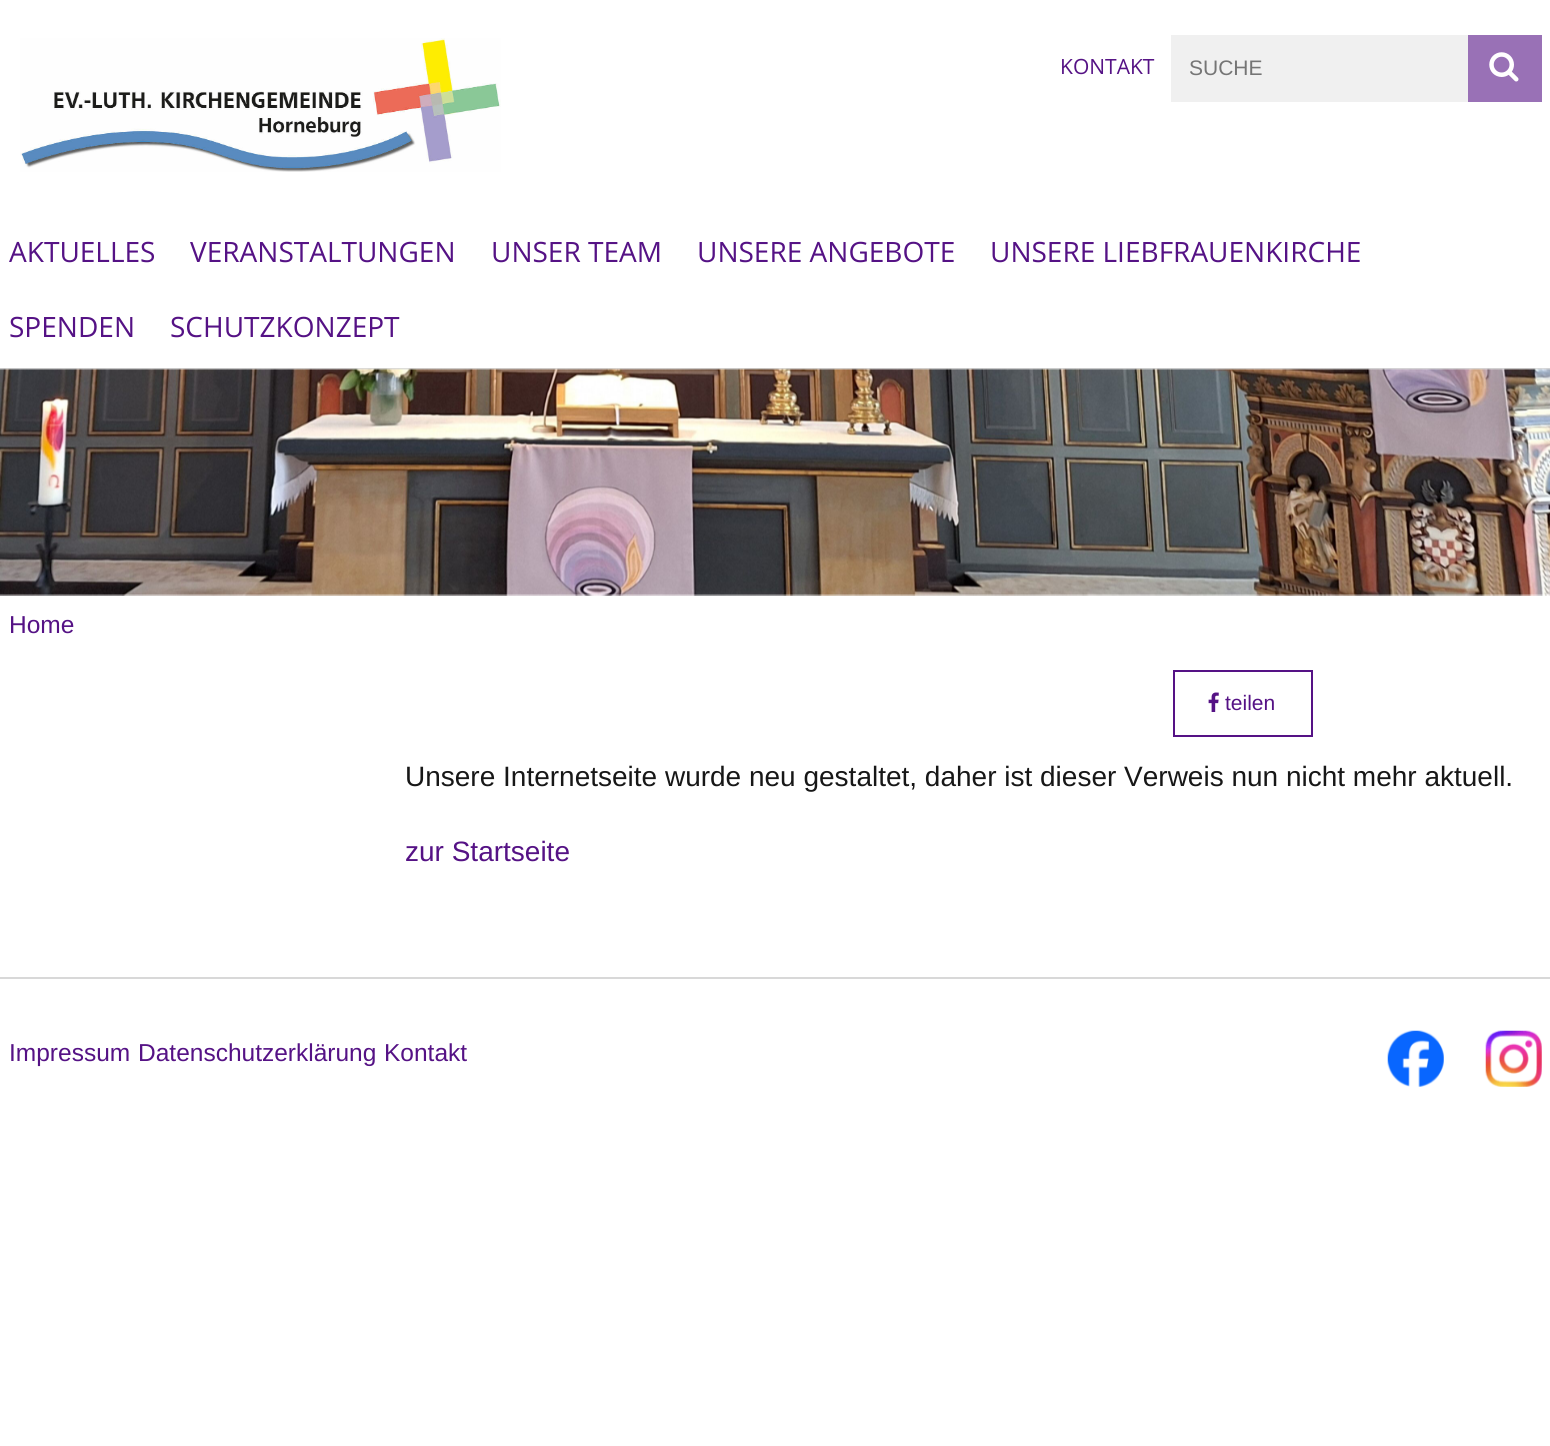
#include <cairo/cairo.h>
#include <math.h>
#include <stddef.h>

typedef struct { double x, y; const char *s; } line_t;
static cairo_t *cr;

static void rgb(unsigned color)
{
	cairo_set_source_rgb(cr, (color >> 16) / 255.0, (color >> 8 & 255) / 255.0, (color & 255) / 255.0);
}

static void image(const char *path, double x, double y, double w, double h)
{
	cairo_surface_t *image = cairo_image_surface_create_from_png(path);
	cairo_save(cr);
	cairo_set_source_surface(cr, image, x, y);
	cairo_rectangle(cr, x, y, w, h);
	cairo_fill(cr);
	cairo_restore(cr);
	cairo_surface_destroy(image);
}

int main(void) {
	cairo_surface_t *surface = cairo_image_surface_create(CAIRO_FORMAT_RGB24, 1550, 1446);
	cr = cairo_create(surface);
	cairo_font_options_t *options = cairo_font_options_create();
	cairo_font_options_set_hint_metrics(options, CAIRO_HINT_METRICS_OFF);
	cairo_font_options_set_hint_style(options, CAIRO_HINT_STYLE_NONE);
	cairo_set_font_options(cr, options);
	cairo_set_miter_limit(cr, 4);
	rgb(0xffffff);
	cairo_paint(cr);
	rgb(0xd8d8d8);
	cairo_rectangle(cr, 0, 368, 1550, 2);
	cairo_fill(cr);
	image("img/1.png", 20, 38, 481, 134);
	rgb(0xf0f0f0);
	cairo_rectangle(cr, 1171, 35, 297, 67);
	cairo_fill(cr);
	rgb(0x9971b6);
	cairo_rectangle(cr, 1468, 35, 74, 67);
	cairo_fill(cr);
	image("img/2.png", 1489, 52, 30, 30);
	image("img/3.png", 0, 368, 1550, 228);
	cairo_rectangle(cr, 1174, 671, 138, 65);
	rgb(0x551285);
	cairo_stroke(cr);
	image("img/4.png", 1208, 692, 11, 20);
	rgb(0xd8d8d8);
	cairo_rectangle(cr, 0, 977, 1550, 2);
	cairo_fill(cr);
	image("img/5.png", 1387, 1030, 57, 57);
	image("img/6.png", 1485, 1030, 57, 57);
	cairo_select_font_face(cr, "Open Sans", CAIRO_FONT_SLANT_NORMAL, CAIRO_FONT_WEIGHT_NORMAL);
	cairo_set_font_size(cr, 21);
	rgb(0x551285);
	cairo_move_to(cr, 1060, 74);
	cairo_show_text(cr, "KONTAKT");
	cairo_select_font_face(cr, "Liberation Sans", CAIRO_FONT_SLANT_NORMAL, CAIRO_FONT_WEIGHT_NORMAL);
	rgb(0x757575);
	cairo_move_to(cr, 1189, 75);
	cairo_show_text(cr, "SUCHE");
	cairo_select_font_face(cr, "Open Sans", CAIRO_FONT_SLANT_NORMAL, CAIRO_FONT_WEIGHT_NORMAL);
	cairo_set_font_size(cr, 28);
	rgb(0x551285);
	{
		static const line_t items[] = {
			{9, 262, "AKTUELLES"},
			{190, 262, "VERANSTALTUNGEN"},
			{491, 262, "UNSER TEAM"},
			{697, 262, "UNSERE ANGEBOTE"},
			{990, 262, "UNSERE LIEBFRAUENKIRCHE"},
			{9, 337, "SPENDEN"},
			{170, 337, "SCHUTZKONZEPT"},
		};
		for (size_t i = 0; i < sizeof items / sizeof *items; i++) {
			cairo_move_to(cr, items[i].x, items[i].y);
			cairo_show_text(cr, items[i].s);
		}
	}
	cairo_select_font_face(cr, "Liberation Sans", CAIRO_FONT_SLANT_NORMAL, CAIRO_FONT_WEIGHT_NORMAL);
	cairo_set_font_size(cr, 24.5);
	cairo_move_to(cr, 9, 633);
	cairo_show_text(cr, "Home");
	cairo_set_font_size(cr, 21);
	cairo_move_to(cr, 1225, 710);
	cairo_show_text(cr, "teilen");
	cairo_set_font_size(cr, 28);
	rgb(0x171717);
	cairo_move_to(cr, 405, 786);
	cairo_show_text(cr, "Unsere Internetseite wurde neu gestaltet, daher ist dieser Verweis nun nicht mehr aktuell.");
	rgb(0x551285);
	cairo_move_to(cr, 405, 861);
	cairo_show_text(cr, "zur Startseite");
	cairo_set_font_size(cr, 24.5);
	{
		static const line_t items[] = {
			{9, 1061, "Impressum"},
			{138, 1061, "Datenschutzerklärung"},
			{384, 1061, "Kontakt"},
		};
		for (size_t i = 0; i < sizeof items / sizeof *items; i++) {
			cairo_move_to(cr, items[i].x, items[i].y);
			cairo_show_text(cr, items[i].s);
		}
	}
	cairo_surface_write_to_png(surface, "page.png");
	cairo_font_options_destroy(options);
	cairo_destroy(cr);
	cairo_surface_destroy(surface);
	return 0;
}
